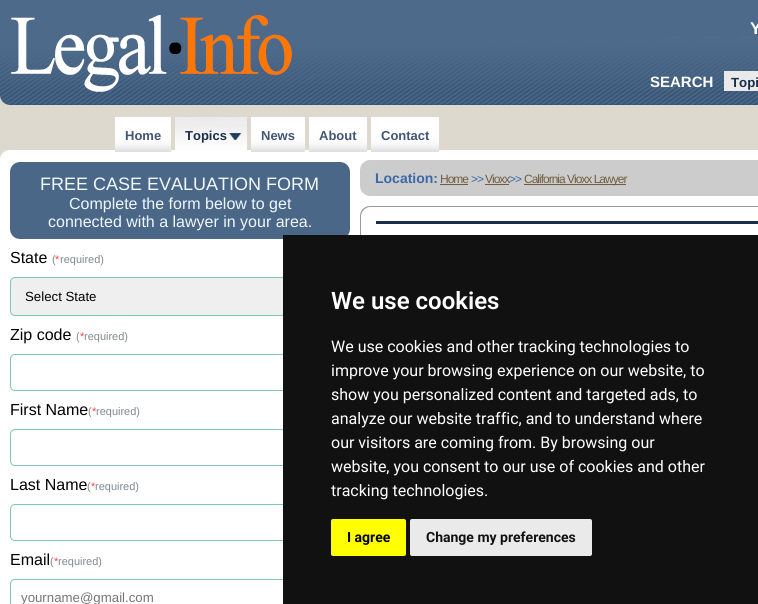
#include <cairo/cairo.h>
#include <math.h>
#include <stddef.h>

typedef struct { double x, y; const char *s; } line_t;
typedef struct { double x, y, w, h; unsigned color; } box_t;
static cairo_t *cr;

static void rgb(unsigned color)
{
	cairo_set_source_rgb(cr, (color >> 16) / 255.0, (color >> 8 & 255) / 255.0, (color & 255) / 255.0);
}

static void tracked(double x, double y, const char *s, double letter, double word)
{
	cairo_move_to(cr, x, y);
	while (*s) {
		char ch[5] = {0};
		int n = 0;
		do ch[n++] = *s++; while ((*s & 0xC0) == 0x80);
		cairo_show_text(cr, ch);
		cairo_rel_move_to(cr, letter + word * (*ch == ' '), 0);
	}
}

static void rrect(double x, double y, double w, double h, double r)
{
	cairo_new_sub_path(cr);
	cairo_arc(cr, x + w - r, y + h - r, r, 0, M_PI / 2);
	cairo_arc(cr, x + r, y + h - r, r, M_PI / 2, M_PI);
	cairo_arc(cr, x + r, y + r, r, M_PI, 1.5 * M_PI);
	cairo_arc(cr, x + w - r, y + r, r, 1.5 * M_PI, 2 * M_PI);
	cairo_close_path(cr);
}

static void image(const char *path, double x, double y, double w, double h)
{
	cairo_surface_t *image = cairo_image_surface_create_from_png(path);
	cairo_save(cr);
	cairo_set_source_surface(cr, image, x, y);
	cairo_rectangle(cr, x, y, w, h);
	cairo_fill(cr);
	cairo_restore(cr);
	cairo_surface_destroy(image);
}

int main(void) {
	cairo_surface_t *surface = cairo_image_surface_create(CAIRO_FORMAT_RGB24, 758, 604);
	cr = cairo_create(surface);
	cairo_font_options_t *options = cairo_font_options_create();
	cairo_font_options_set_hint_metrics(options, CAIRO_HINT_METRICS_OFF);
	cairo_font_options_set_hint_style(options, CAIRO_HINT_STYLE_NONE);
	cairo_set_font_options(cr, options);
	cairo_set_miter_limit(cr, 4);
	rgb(0xddd9cf);
	cairo_paint(cr);
	image("img/1.png", 0, 0, 758, 105);
	image("img/2.png", 11, 15, 281, 77);
	rgb(0xeaeaea);
	cairo_rectangle(cr, 724, 71, 34, 20);
	cairo_fill(cr);
	rgb(0xffffff);
	cairo_rectangle(cr, 0, 150, 758, 454);
	cairo_fill(cr);
	image("img/3.png", 115, 117, 56, 35);
	image("img/4.png", 175, 117, 72, 33);
	image("img/5.png", 251, 117, 54, 35);
	image("img/6.png", 309, 117, 58, 35);
	image("img/7.png", 371, 117, 68, 35);
	image("img/8.png", 0, 150, 9, 8);
	rgb(0x4b6787);
	rrect(10, 162, 340, 77, 10);
	cairo_fill(cr);
	rgb(0xefefef);
	rrect(10.5, 277.5, 329, 38, 4.5);
	cairo_fill_preserve(cr);
	rgb(0x7ac9b7);
	cairo_set_line_width(cr, 1);
	cairo_stroke(cr);
	rrect(10.5, 354.5, 327, 36, 4.5);
	cairo_stroke(cr);
	rrect(10.5, 429.5, 327, 36, 4.5);
	cairo_stroke(cr);
	rrect(10.5, 504.5, 327, 36, 4.5);
	cairo_stroke(cr);
	rrect(10.5, 579.5, 327, 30, 4.5);
	cairo_stroke(cr);
	rgb(0xcccccc);
	cairo_rectangle(cr, 360, 160, 398, 36);
	cairo_fill(cr);
	image("img/9.png", 360, 160, 9, 10);
	{
		static const box_t items[] = {
			{440, 184, 28, 1, 0x715d40},
			{485, 184, 24, 1, 0x715d40},
			{524, 184, 102, 1, 0x715d40},
		};
		for (size_t i = 0; i < sizeof items / sizeof *items; i++) {
			rgb(items[i].color);
			cairo_rectangle(cr, items[i].x, items[i].y, items[i].w, items[i].h);
			cairo_fill(cr);
		}
	}
	image("img/10.png", 360, 186, 9, 10);
	image("img/11.png", 360, 206, 398, 10);
	{
		static const box_t items[] = {
			{360, 216, 1, 19, 0x999999},
			{376, 221, 382, 3, 0x192d4b},
			{283, 235, 475, 369, 0x111111},
		};
		for (size_t i = 0; i < sizeof items / sizeof *items; i++) {
			rgb(items[i].color);
			cairo_rectangle(cr, items[i].x, items[i].y, items[i].w, items[i].h);
			cairo_fill(cr);
		}
	}
	rgb(0xffff00);
	rrect(331, 519, 75, 37, 2);
	cairo_fill(cr);
	rgb(0xeaeaea);
	rrect(410, 519, 182, 37, 2);
	cairo_fill(cr);
	cairo_select_font_face(cr, "Liberation Sans", CAIRO_FONT_SLANT_NORMAL, CAIRO_FONT_WEIGHT_BOLD);
	cairo_set_font_size(cr, 17);
	rgb(0xffffff);
	cairo_move_to(cr, 750, 34);
	cairo_show_text(cr, "Y");
	cairo_set_font_size(cr, 15);
	cairo_move_to(cr, 650, 87);
	cairo_show_text(cr, "SEARCH");
	cairo_set_font_size(cr, 13.25);
	rgb(0x192d4b);
	cairo_move_to(cr, 731, 87);
	cairo_show_text(cr, "Topi");
	cairo_set_font_size(cr, 13);
	rgb(0x405676);
	cairo_move_to(cr, 125, 140);
	cairo_show_text(cr, "Home");
	rgb(0x192d4b);
	cairo_move_to(cr, 185, 140);
	cairo_show_text(cr, "Topics");
	rgb(0x405676);
	{
		static const line_t items[] = {
			{261, 140, "News"},
			{319, 140, "About"},
			{381, 140, "Contact"},
		};
		for (size_t i = 0; i < sizeof items / sizeof *items; i++) {
			cairo_move_to(cr, items[i].x, items[i].y);
			cairo_show_text(cr, items[i].s);
		}
	}
	cairo_select_font_face(cr, "Liberation Sans", CAIRO_FONT_SLANT_NORMAL, CAIRO_FONT_WEIGHT_NORMAL);
	cairo_set_font_size(cr, 18);
	rgb(0xf0f8ff);
	cairo_move_to(cr, 40, 190);
	cairo_show_text(cr, "FREE CASE EVALUATION FORM");
	cairo_set_font_size(cr, 16);
	cairo_move_to(cr, 69, 209);
	cairo_show_text(cr, "Complete the form below to get");
	cairo_move_to(cr, 48, 227);
	cairo_show_text(cr, "connected with a lawyer in your area.");
	rgb(0x000000);
	cairo_move_to(cr, 10, 263);
	cairo_show_text(cr, "State");
	cairo_set_font_size(cr, 11);
	rgb(0x818890);
	cairo_move_to(cr, 52, 263);
	cairo_show_text(cr, "(");
	rgb(0xff4040);
	cairo_move_to(cr, 55, 263);
	cairo_show_text(cr, "*");
	rgb(0x818890);
	cairo_move_to(cr, 60, 263);
	cairo_show_text(cr, "required)");
	cairo_set_font_size(cr, 13.25);
	rgb(0x000000);
	cairo_move_to(cr, 25, 301);
	cairo_show_text(cr, "Select State");
	cairo_set_font_size(cr, 16);
	cairo_move_to(cr, 10, 340);
	cairo_show_text(cr, "Zip code");
	cairo_set_font_size(cr, 11);
	rgb(0x818890);
	cairo_move_to(cr, 76, 340);
	cairo_show_text(cr, "(");
	rgb(0xff4040);
	cairo_move_to(cr, 80, 340);
	cairo_show_text(cr, "*");
	rgb(0x818890);
	cairo_move_to(cr, 84, 340);
	cairo_show_text(cr, "required)");
	cairo_set_font_size(cr, 16);
	rgb(0x000000);
	cairo_move_to(cr, 10, 415);
	cairo_show_text(cr, "First Name");
	cairo_set_font_size(cr, 11);
	rgb(0x818890);
	cairo_move_to(cr, 88, 415);
	cairo_show_text(cr, "(");
	rgb(0xff4040);
	cairo_move_to(cr, 92, 415);
	cairo_show_text(cr, "*");
	rgb(0x818890);
	cairo_move_to(cr, 96, 415);
	cairo_show_text(cr, "required)");
	cairo_set_font_size(cr, 16);
	rgb(0x000000);
	cairo_move_to(cr, 10, 490);
	cairo_show_text(cr, "Last Name");
	cairo_set_font_size(cr, 11);
	rgb(0x818890);
	cairo_move_to(cr, 87, 490);
	cairo_show_text(cr, "(");
	rgb(0xff4040);
	cairo_move_to(cr, 91, 490);
	cairo_show_text(cr, "*");
	rgb(0x818890);
	cairo_move_to(cr, 95, 490);
	cairo_show_text(cr, "required)");
	cairo_set_font_size(cr, 16);
	rgb(0x000000);
	cairo_move_to(cr, 10, 565);
	cairo_show_text(cr, "Email");
	cairo_set_font_size(cr, 11);
	rgb(0x818890);
	cairo_move_to(cr, 50, 565);
	cairo_show_text(cr, "(");
	rgb(0xff4040);
	cairo_move_to(cr, 54, 565);
	cairo_show_text(cr, "*");
	rgb(0x818890);
	cairo_move_to(cr, 58, 565);
	cairo_show_text(cr, "required)");
	cairo_set_font_size(cr, 13.25);
	rgb(0x757575);
	cairo_move_to(cr, 21, 602);
	cairo_show_text(cr, "yourname@gmail.com");
	cairo_select_font_face(cr, "Liberation Sans", CAIRO_FONT_SLANT_NORMAL, CAIRO_FONT_WEIGHT_BOLD);
	cairo_set_font_size(cr, 14);
	rgb(0x3b68a8);
	cairo_move_to(cr, 375, 183);
	cairo_show_text(cr, "Location:");
	cairo_select_font_face(cr, "Liberation Sans", CAIRO_FONT_SLANT_NORMAL, CAIRO_FONT_WEIGHT_NORMAL);
	cairo_set_font_size(cr, 12);
	rgb(0x715d40);
	tracked(440, 183, "Home", -1, 0);
	rgb(0x3b68a8);
	tracked(471, 183, ">>", -1, 0);
	rgb(0x715d40);
	tracked(485, 183, "Vioxx", -1, 0);
	rgb(0x3b68a8);
	tracked(509, 183, ">>", -1, 0);
	rgb(0x715d40);
	tracked(524, 183, "California Vioxx Lawyer", -1, 0);
	cairo_select_font_face(cr, "Roboto SemiBold", CAIRO_FONT_SLANT_NORMAL, CAIRO_FONT_WEIGHT_NORMAL);
	cairo_set_font_size(cr, 24);
	rgb(0xffffff);
	cairo_move_to(cr, 331, 309);
	cairo_show_text(cr, "We use cookies");
	cairo_select_font_face(cr, "Roboto", CAIRO_FONT_SLANT_NORMAL, CAIRO_FONT_WEIGHT_NORMAL);
	cairo_set_font_size(cr, 16);
	{
		static const line_t items[] = {
			{331, 352, "We use cookies and other tracking technologies to"},
			{331, 376, "improve your browsing experience on our website, to"},
			{331, 400, "show you personalized content and targeted ads, to"},
			{331, 424, "analyze our website traffic, and to understand where"},
			{331, 448, "our visitors are coming from. By browsing our"},
			{331, 472, "website, you consent to our use of cookies and other"},
			{331, 496, "tracking technologies."},
		};
		for (size_t i = 0; i < sizeof items / sizeof *items; i++) {
			cairo_move_to(cr, items[i].x, items[i].y);
			cairo_show_text(cr, items[i].s);
		}
	}
	cairo_select_font_face(cr, "Roboto", CAIRO_FONT_SLANT_NORMAL, CAIRO_FONT_WEIGHT_BOLD);
	cairo_set_font_size(cr, 14);
	rgb(0x000000);
	cairo_move_to(cr, 347, 542);
	cairo_show_text(cr, "I agree");
	rgb(0x111111);
	cairo_move_to(cr, 426, 542);
	cairo_show_text(cr, "Change my preferences");
	cairo_surface_write_to_png(surface, "page.png");
	cairo_font_options_destroy(options);
	cairo_destroy(cr);
	cairo_surface_destroy(surface);
	return 0;
}
